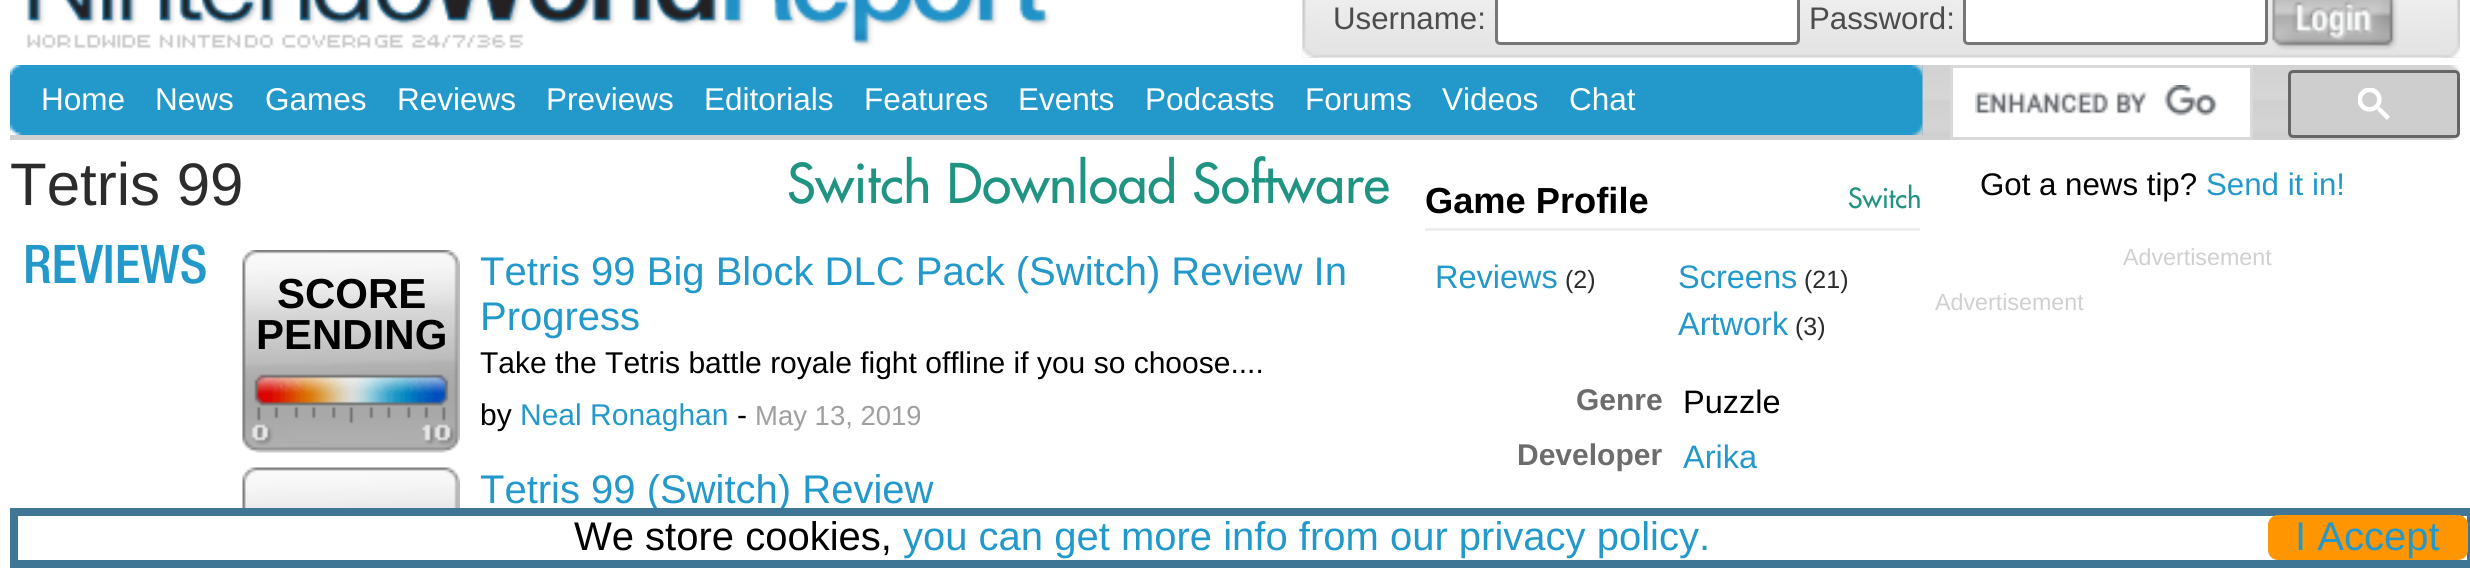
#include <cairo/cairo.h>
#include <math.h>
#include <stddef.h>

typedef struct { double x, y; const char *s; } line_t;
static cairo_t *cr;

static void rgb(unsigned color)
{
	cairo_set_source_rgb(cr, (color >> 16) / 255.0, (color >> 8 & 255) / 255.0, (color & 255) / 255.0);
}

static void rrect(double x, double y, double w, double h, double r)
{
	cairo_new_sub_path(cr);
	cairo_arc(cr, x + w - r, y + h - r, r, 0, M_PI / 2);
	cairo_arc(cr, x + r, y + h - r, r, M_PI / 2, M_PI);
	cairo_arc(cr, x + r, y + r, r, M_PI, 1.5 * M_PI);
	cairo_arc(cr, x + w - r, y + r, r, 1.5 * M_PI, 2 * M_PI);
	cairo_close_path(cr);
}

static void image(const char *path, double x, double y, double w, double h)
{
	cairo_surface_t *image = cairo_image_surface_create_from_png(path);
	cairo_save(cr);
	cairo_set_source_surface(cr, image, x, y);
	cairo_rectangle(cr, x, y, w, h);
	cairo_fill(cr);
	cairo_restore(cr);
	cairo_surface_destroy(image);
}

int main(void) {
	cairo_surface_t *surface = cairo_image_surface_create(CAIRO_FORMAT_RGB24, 2470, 568);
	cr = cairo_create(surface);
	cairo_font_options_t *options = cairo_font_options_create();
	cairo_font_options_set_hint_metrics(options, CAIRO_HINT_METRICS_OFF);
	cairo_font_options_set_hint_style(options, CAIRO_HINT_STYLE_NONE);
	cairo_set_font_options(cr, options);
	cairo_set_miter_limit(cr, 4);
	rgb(0xffffff);
	cairo_paint(cr);
	image("img/1.png", 26, 0, 1024, 49);
	image("img/2.png", 1302, 0, 1158, 58);
	image("img/3.png", 1302, 0, 16, 58);
	image("img/4.png", 2442, 0, 18, 58);
	rgb(0xffffff);
	rrect(1496.5, -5.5, 302, 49, 3.5);
	cairo_fill_preserve(cr);
	rgb(0x767676);
	cairo_set_line_width(cr, 3);
	cairo_stroke(cr);
	rgb(0xffffff);
	rrect(1964.5, -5.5, 302, 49, 3.5);
	cairo_fill_preserve(cr);
	rgb(0x767676);
	cairo_stroke(cr);
	image("img/5.png", 2272, 0, 126, 50);
	rgb(0xd0d0d0);
	cairo_rectangle(cr, 10, 135, 2446, 5);
	cairo_fill(cr);
	rgb(0x2399cb);
	cairo_rectangle(cr, 10, 65, 1913, 70);
	cairo_fill(cr);
	image("img/6.png", 10, 125, 1913, 10);
	image("img/7.png", 10, 65, 1913, 10);
	image("img/8.png", 1922, 65, 537, 70);
	image("img/9.png", 2450, 133, 10, 7);
	image("img/10.png", 2450, 65, 10, 10);
	rgb(0xffffff);
	cairo_rectangle(cr, 1951.5, 66.5, 300, 72);
	cairo_fill_preserve(cr);
	rgb(0xd9d9d9);
	cairo_stroke(cr);
	image("img/11.png", 1975, 85, 243, 31);
	rgb(0xcecece);
	rrect(2289.5, 71.5, 169, 65, 3.5);
	cairo_fill_preserve(cr);
	rgb(0x666666);
	cairo_stroke(cr);
	image("img/12.png", 2358, 88, 32, 32);
	image("img/13.png", 242, 250, 218, 203);
	image("img/14.png", 242, 467, 218, 41);
	rgb(0xefefef);
	cairo_rectangle(cr, 1425, 228, 495, 3);
	cairo_fill(cr);
	cairo_select_font_face(cr, "Liberation Sans", CAIRO_FONT_SLANT_NORMAL, CAIRO_FONT_WEIGHT_NORMAL);
	cairo_set_font_size(cr, 31.25);
	rgb(0x4c4c4c);
	cairo_move_to(cr, 1333, 29);
	cairo_show_text(cr, "Username:");
	cairo_move_to(cr, 1809, 29);
	cairo_show_text(cr, "Password:");
	cairo_set_font_size(cr, 31.5);
	rgb(0xffffff);
	{
		static const line_t items[] = {
			{41, 110, "Home"},
			{155, 110, "News"},
			{265, 110, "Games"},
			{397, 110, "Reviews"},
			{546, 110, "Previews"},
			{704, 110, "Editorials"},
			{864, 110, "Features"},
			{1018, 110, "Events"},
			{1145, 110, "Podcasts"},
			{1305, 110, "Forums"},
			{1442, 110, "Videos"},
			{1569, 110, "Chat"},
		};
		for (size_t i = 0; i < sizeof items / sizeof *items; i++) {
			cairo_move_to(cr, items[i].x, items[i].y);
			cairo_show_text(cr, items[i].s);
		}
	}
	cairo_set_font_size(cr, 60);
	rgb(0x2c2c2c);
	cairo_move_to(cr, 10, 205);
	cairo_show_text(cr, "Tetris 99");
	cairo_select_font_face(cr, "Futura Medium", CAIRO_FONT_SLANT_NORMAL, CAIRO_FONT_WEIGHT_NORMAL);
	cairo_set_font_size(cr, 53.25);
	rgb(0x209482);
	cairo_move_to(cr, 787, 203);
	cairo_show_text(cr, "Switch Download Software");
	cairo_select_font_face(cr, "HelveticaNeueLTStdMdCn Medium", CAIRO_FONT_SLANT_NORMAL, CAIRO_FONT_WEIGHT_NORMAL);
	rgb(0x2399cb);
	cairo_move_to(cr, 23, 283);
	cairo_show_text(cr, "REVIEWS");
	cairo_select_font_face(cr, "Liberation Sans", CAIRO_FONT_SLANT_NORMAL, CAIRO_FONT_WEIGHT_BOLD);
	cairo_set_font_size(cr, 42);
	rgb(0x000000);
	cairo_move_to(cr, 277, 308);
	cairo_show_text(cr, "SCORE");
	cairo_move_to(cr, 256, 349);
	cairo_show_text(cr, "PENDING");
	cairo_select_font_face(cr, "Liberation Sans", CAIRO_FONT_SLANT_NORMAL, CAIRO_FONT_WEIGHT_NORMAL);
	cairo_set_font_size(cr, 40);
	rgb(0x2399cb);
	cairo_move_to(cr, 480, 285);
	cairo_show_text(cr, "Tetris 99 Big Block DLC Pack (Switch) Review In");
	cairo_move_to(cr, 480, 330);
	cairo_show_text(cr, "Progress");
	cairo_set_font_size(cr, 30);
	rgb(0x000000);
	cairo_move_to(cr, 480, 373);
	cairo_show_text(cr, "Take the Tetris battle royale fight offline if you so choose....");
	cairo_move_to(cr, 480, 425);
	cairo_show_text(cr, "by");
	rgb(0x2399cb);
	cairo_move_to(cr, 520, 425);
	cairo_show_text(cr, "Neal Ronaghan");
	rgb(0x000000);
	cairo_move_to(cr, 737, 425);
	cairo_show_text(cr, "-");
	cairo_set_font_size(cr, 27.5);
	rgb(0x9f9f9f);
	cairo_move_to(cr, 755, 425);
	cairo_show_text(cr, "May 13, 2019");
	cairo_set_font_size(cr, 40);
	rgb(0x2399cb);
	cairo_move_to(cr, 480, 503);
	cairo_show_text(cr, "Tetris 99 (Switch) Review");
	cairo_select_font_face(cr, "Liberation Sans", CAIRO_FONT_SLANT_NORMAL, CAIRO_FONT_WEIGHT_BOLD);
	cairo_set_font_size(cr, 36.25);
	rgb(0x000000);
	cairo_move_to(cr, 1425, 213);
	cairo_show_text(cr, "Game Profile");
	cairo_select_font_face(cr, "Futura Medium", CAIRO_FONT_SLANT_NORMAL, CAIRO_FONT_WEIGHT_NORMAL);
	cairo_set_font_size(cr, 27);
	rgb(0x209482);
	cairo_move_to(cr, 1848, 208);
	cairo_show_text(cr, "Switch");
	cairo_select_font_face(cr, "Liberation Sans", CAIRO_FONT_SLANT_NORMAL, CAIRO_FONT_WEIGHT_NORMAL);
	cairo_set_font_size(cr, 32.5);
	rgb(0x2399cb);
	cairo_move_to(cr, 1435, 288);
	cairo_show_text(cr, "Reviews");
	cairo_set_font_size(cr, 25);
	rgb(0x2c2c2c);
	cairo_move_to(cr, 1565, 288);
	cairo_show_text(cr, "(2)");
	cairo_set_font_size(cr, 32.5);
	rgb(0x2399cb);
	cairo_move_to(cr, 1678, 288);
	cairo_show_text(cr, "Screens");
	cairo_set_font_size(cr, 25);
	rgb(0x2c2c2c);
	cairo_move_to(cr, 1804, 288);
	cairo_show_text(cr, "(21)");
	cairo_set_font_size(cr, 32.5);
	rgb(0x2399cb);
	cairo_move_to(cr, 1678, 335);
	cairo_show_text(cr, "Artwork");
	cairo_set_font_size(cr, 25);
	rgb(0x2c2c2c);
	cairo_move_to(cr, 1795, 335);
	cairo_show_text(cr, "(3)");
	cairo_select_font_face(cr, "Liberation Sans", CAIRO_FONT_SLANT_NORMAL, CAIRO_FONT_WEIGHT_BOLD);
	cairo_set_font_size(cr, 30);
	rgb(0x6c6c6c);
	cairo_move_to(cr, 1576, 410);
	cairo_show_text(cr, "Genre");
	cairo_select_font_face(cr, "Liberation Sans", CAIRO_FONT_SLANT_NORMAL, CAIRO_FONT_WEIGHT_NORMAL);
	cairo_set_font_size(cr, 32.5);
	rgb(0x000000);
	cairo_move_to(cr, 1683, 413);
	cairo_show_text(cr, "Puzzle");
	cairo_select_font_face(cr, "Liberation Sans", CAIRO_FONT_SLANT_NORMAL, CAIRO_FONT_WEIGHT_BOLD);
	cairo_set_font_size(cr, 30);
	rgb(0x6c6c6c);
	cairo_move_to(cr, 1517, 465);
	cairo_show_text(cr, "Developer");
	cairo_select_font_face(cr, "Liberation Sans", CAIRO_FONT_SLANT_NORMAL, CAIRO_FONT_WEIGHT_NORMAL);
	cairo_set_font_size(cr, 32.5);
	rgb(0x2399cb);
	cairo_move_to(cr, 1683, 468);
	cairo_show_text(cr, "Arika");
	cairo_set_font_size(cr, 31.25);
	rgb(0x000000);
	cairo_move_to(cr, 1980, 195);
	cairo_show_text(cr, "Got a news tip?");
	rgb(0x2399cb);
	cairo_move_to(cr, 2206, 195);
	cairo_show_text(cr, "Send it in!");
	cairo_set_font_size(cr, 23.25);
	rgb(0xd0d0d0);
	cairo_move_to(cr, 2123, 265);
	cairo_show_text(cr, "Advertisement");
	cairo_move_to(cr, 1935, 310);
	cairo_show_text(cr, "Advertisement");
	cairo_rectangle(cr, 14, 512, 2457, 52);
	rgb(0x3f7695);
	cairo_set_line_width(cr, 8);
	cairo_stroke(cr);
	cairo_set_font_size(cr, 40);
	rgb(0x000000);
	cairo_move_to(cr, 574, 550);
	cairo_show_text(cr, "We store cookies,");
	rgb(0x2399cb);
	cairo_move_to(cr, 903, 550);
	cairo_show_text(cr, "you can get more info from our privacy policy.");
	rgb(0xff9500);
	rrect(2268, 515, 200, 45, 10);
	cairo_fill(cr);
	rgb(0x2399cb);
	cairo_move_to(cr, 2295, 550);
	cairo_show_text(cr, "I Accept");
	cairo_surface_write_to_png(surface, "page.png");
	cairo_font_options_destroy(options);
	cairo_destroy(cr);
	cairo_surface_destroy(surface);
	return 0;
}
